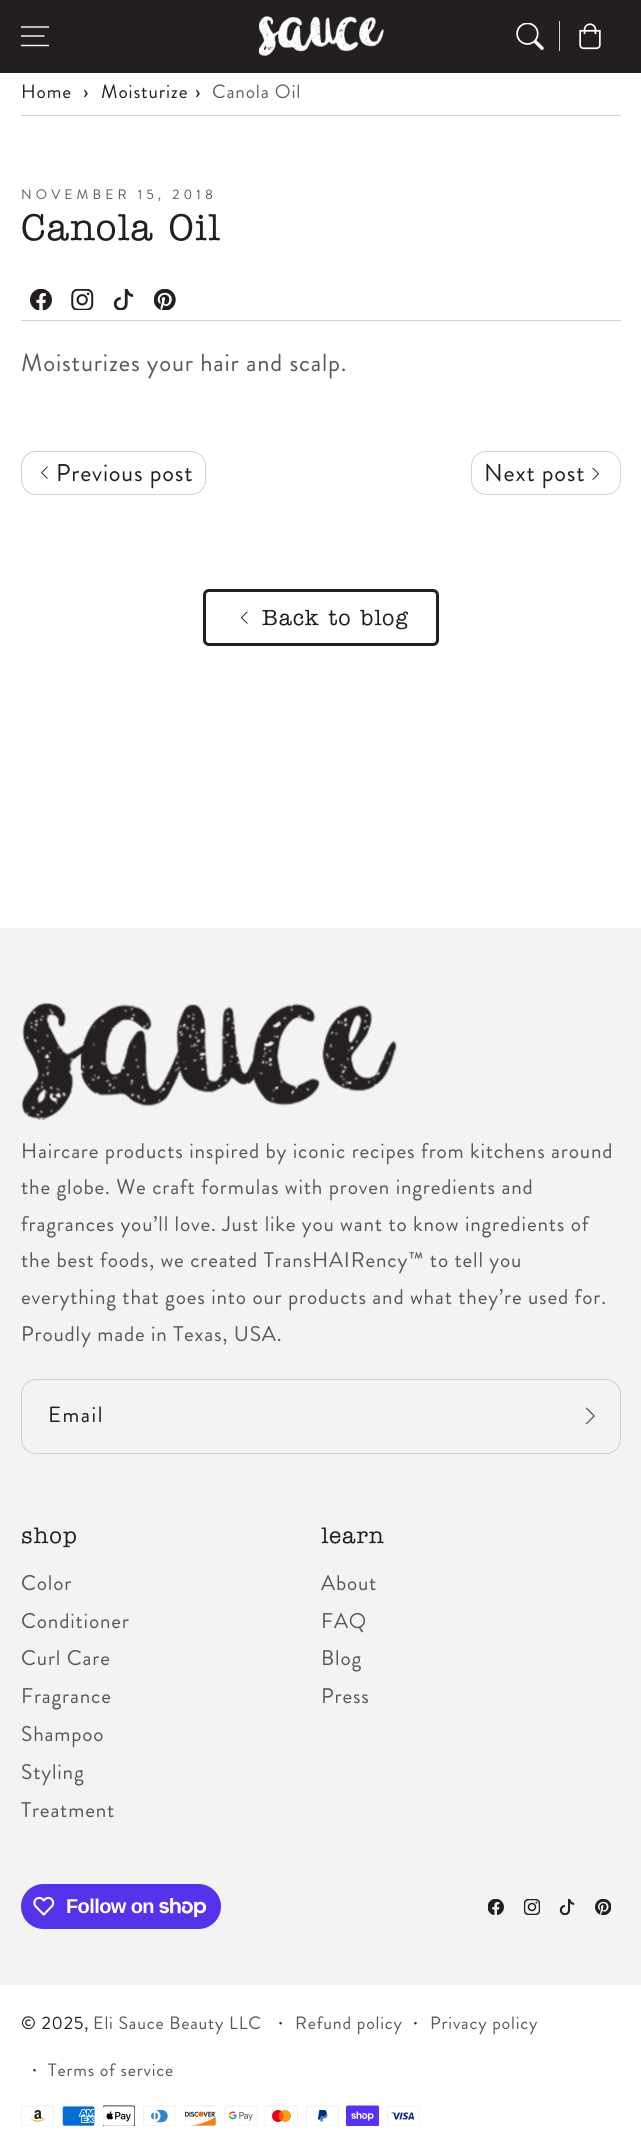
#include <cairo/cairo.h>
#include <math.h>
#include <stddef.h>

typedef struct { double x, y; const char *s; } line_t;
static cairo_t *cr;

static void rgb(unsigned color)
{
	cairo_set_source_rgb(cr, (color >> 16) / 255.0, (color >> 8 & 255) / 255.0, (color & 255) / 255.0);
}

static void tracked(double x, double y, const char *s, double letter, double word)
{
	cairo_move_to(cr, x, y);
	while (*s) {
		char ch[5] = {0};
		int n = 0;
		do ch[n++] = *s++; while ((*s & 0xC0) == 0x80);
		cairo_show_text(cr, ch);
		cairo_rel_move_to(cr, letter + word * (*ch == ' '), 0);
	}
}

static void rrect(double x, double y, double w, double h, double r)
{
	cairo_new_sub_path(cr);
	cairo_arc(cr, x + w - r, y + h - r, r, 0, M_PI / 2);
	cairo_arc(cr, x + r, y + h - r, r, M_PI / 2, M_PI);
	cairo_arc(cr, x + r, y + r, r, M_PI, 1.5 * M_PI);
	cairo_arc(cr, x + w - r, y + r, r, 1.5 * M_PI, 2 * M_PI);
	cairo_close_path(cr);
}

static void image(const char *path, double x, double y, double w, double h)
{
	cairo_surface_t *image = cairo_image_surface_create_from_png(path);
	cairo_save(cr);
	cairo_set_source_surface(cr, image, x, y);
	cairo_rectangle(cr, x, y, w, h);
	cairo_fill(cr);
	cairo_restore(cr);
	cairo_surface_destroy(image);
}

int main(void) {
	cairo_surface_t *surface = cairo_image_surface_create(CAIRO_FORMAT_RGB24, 641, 2137);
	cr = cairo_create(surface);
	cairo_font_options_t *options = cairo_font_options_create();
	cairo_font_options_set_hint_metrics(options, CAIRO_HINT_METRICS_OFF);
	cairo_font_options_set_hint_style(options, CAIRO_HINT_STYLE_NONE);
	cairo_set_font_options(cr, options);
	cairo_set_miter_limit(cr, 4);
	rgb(0xffffff);
	cairo_paint(cr);
	rgb(0x231f20);
	cairo_rectangle(cr, 0, 0, 641, 73);
	cairo_fill(cr);
	cairo_new_path(cr);
	cairo_move_to(cr, 21, 45.5);
	cairo_line_to(cr, 49, 45.5);
	cairo_move_to(cr, 21, 36);
	cairo_line_to(cr, 44.5, 36);
	cairo_move_to(cr, 21, 27);
	cairo_line_to(cr, 49, 27);
	rgb(0xffffff);
	cairo_set_line_width(cr, 1.4);
	cairo_stroke(cr);
	image("img/1.png", 258, 16, 126, 40);
	image("img/2.png", 516, 23, 28, 27);
	rgb(0xd1d1d1);
	cairo_rectangle(cr, 559, 21, 1, 30);
	cairo_fill(cr);
	image("img/3.png", 579, 23, 22, 27);
	cairo_rectangle(cr, 21, 115, 600, 1);
	cairo_fill(cr);
	cairo_rectangle(cr, 21, 320, 600, 1);
	cairo_fill(cr);
	image("img/4.png", 30, 289, 22, 21);
	image("img/5.png", 71, 289, 23, 21);
	image("img/6.png", 113, 289, 21, 21);
	image("img/7.png", 154, 289, 22, 21);
	rrect(21.5, 451.5, 184, 43, 14.5);
	cairo_set_line_width(cr, 1);
	cairo_stroke(cr);
	image("img/8.png", 41, 466, 7, 13);
	rrect(471.5, 451.5, 149, 43, 14.5);
	cairo_stroke(cr);
	image("img/9.png", 592, 467, 7, 13);
	rrect(204.5, 590.5, 233, 54, 4.5);
	rgb(0x231f20);
	cairo_set_line_width(cr, 3);
	cairo_stroke(cr);
	image("img/10.png", 241, 611, 7, 13);
	rgb(0xf3f3f3);
	cairo_rectangle(cr, 0, 928, 641, 1057);
	cairo_fill(cr);
	image("img/11.png", 21, 1002, 376, 118);
	rrect(21.5, 1379.5, 599, 74, 14.5);
	rgb(0xd1d1d1);
	cairo_set_line_width(cr, 1);
	cairo_stroke(cr);
	image("img/12.png", 585, 1407, 10, 18);
	rgb(0x5433eb);
	rrect(21, 1884, 200, 45, 22.5);
	cairo_fill(cr);
	image("img/13.png", 33, 1896, 22, 20);
	image("img/14.png", 159, 1898, 47, 20);
	image("img/15.png", 488, 1899, 16, 16);
	image("img/16.png", 524, 1899, 16, 16);
	image("img/17.png", 559, 1899, 16, 16);
	image("img/18.png", 595, 1899, 16, 16);
	image("img/19.png", 21, 2105, 33, 21);
	image("img/20.png", 62, 2105, 33, 21);
	image("img/21.png", 103, 2105, 32, 21);
	image("img/22.png", 143, 2105, 33, 21);
	image("img/23.png", 184, 2105, 32, 21);
	image("img/24.png", 224, 2105, 34, 21);
	image("img/25.png", 265, 2105, 33, 21);
	image("img/26.png", 305, 2105, 34, 21);
	image("img/27.png", 346, 2105, 33, 21);
	image("img/28.png", 387, 2105, 33, 21);
	cairo_select_font_face(cr, "Brandon Grotesque", CAIRO_FONT_SLANT_NORMAL, CAIRO_FONT_WEIGHT_NORMAL);
	cairo_set_font_size(cr, 19.25);
	rgb(0x231f20);
	tracked(21, 98, "Home", 0.83, 0);
	cairo_set_font_size(cr, 22);
	tracked(83, 98, "›", 0.83, 0);
	cairo_set_font_size(cr, 19.25);
	tracked(101, 98, "Moisturize", 0.83, 0);
	cairo_set_font_size(cr, 22);
	tracked(195, 98, "›", 0.83, 0);
	cairo_set_font_size(cr, 19.25);
	rgb(0x656263);
	tracked(212, 98, "Canola Oil", 0.83, 0);
	cairo_set_font_size(cr, 13.75);
	rgb(0x5a5758);
	tracked(21, 199, "NOVEMBER 15, 2018", 4.1, 0);
	cairo_select_font_face(cr, "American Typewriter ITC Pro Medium", CAIRO_FONT_SLANT_NORMAL, CAIRO_FONT_WEIGHT_NORMAL);
	cairo_set_font_size(cr, 37.5);
	rgb(0x231f20);
	tracked(21, 240, "Canola Oil", 0.83, 0);
	cairo_select_font_face(cr, "Brandon Grotesque", CAIRO_FONT_SLANT_NORMAL, CAIRO_FONT_WEIGHT_NORMAL);
	cairo_set_font_size(cr, 24.75);
	rgb(0x5a5758);
	tracked(21, 371, "Moisturizes your hair and scalp.", 0.83, 0);
	cairo_set_font_size(cr, 24.25);
	rgb(0x231f20);
	tracked(56, 481, "Previous post", 0.83, 0);
	tracked(484, 481, "Next post", 0.83, 0);
	cairo_select_font_face(cr, "American Typewriter ITC Pro Medium", CAIRO_FONT_SLANT_NORMAL, CAIRO_FONT_WEIGHT_NORMAL);
	cairo_set_font_size(cr, 22);
	tracked(262, 625, "Back to blog", 0.83, 0);
	cairo_select_font_face(cr, "Brandon Grotesque", CAIRO_FONT_SLANT_NORMAL, CAIRO_FONT_WEIGHT_NORMAL);
	cairo_set_font_size(cr, 21.2);
	rgb(0x5a5758);
	{
		static const line_t items[] = {
			{21, 1158, "Haircare products inspired by iconic recipes from kitchens around"},
			{21, 1194, "the globe. We craft formulas with proven ingredients and"},
			{21, 1231, "fragrances you’ll love. Just like you want to know ingredients of"},
			{21, 1267, "the best foods, we created TransHAIRency™ to tell you"},
			{21, 1304, "everything that goes into our products and what they’re used for."},
			{21, 1341, "Proudly made in Texas, USA."},
		};
		for (size_t i = 0; i < sizeof items / sizeof *items; i++) {
			tracked(items[i].x, items[i].y, items[i].s, 0.83, 0);
		}
	}
	cairo_set_font_size(cr, 22);
	rgb(0x231f20);
	tracked(48, 1422, "Email", 1.5, 0);
	cairo_select_font_face(cr, "American Typewriter ITC Pro Medium", CAIRO_FONT_SLANT_NORMAL, CAIRO_FONT_WEIGHT_NORMAL);
	cairo_set_font_size(cr, 22.5);
	tracked(21, 1543, "shop", 0.83, 0);
	cairo_select_font_face(cr, "Brandon Grotesque", CAIRO_FONT_SLANT_NORMAL, CAIRO_FONT_WEIGHT_NORMAL);
	cairo_set_font_size(cr, 21.2);
	rgb(0x5a5758);
	{
		static const line_t items[] = {
			{21, 1590, "Color"},
			{21, 1628, "Conditioner"},
			{21, 1665, "Curl Care"},
			{21, 1703, "Fragrance"},
			{21, 1741, "Shampoo"},
			{21, 1779, "Styling"},
			{21, 1817, "Treatment"},
		};
		for (size_t i = 0; i < sizeof items / sizeof *items; i++) {
			tracked(items[i].x, items[i].y, items[i].s, 0.83, 0);
		}
	}
	cairo_select_font_face(cr, "American Typewriter ITC Pro Medium", CAIRO_FONT_SLANT_NORMAL, CAIRO_FONT_WEIGHT_NORMAL);
	cairo_set_font_size(cr, 22.5);
	rgb(0x231f20);
	tracked(321, 1543, "learn", 0.83, 0);
	cairo_select_font_face(cr, "Brandon Grotesque", CAIRO_FONT_SLANT_NORMAL, CAIRO_FONT_WEIGHT_NORMAL);
	cairo_set_font_size(cr, 21.2);
	rgb(0x5a5758);
	{
		static const line_t items[] = {
			{321, 1590, "About"},
			{321, 1628, "FAQ"},
			{321, 1665, "Blog"},
			{321, 1703, "Press"},
		};
		for (size_t i = 0; i < sizeof items / sizeof *items; i++) {
			tracked(items[i].x, items[i].y, items[i].s, 0.83, 0);
		}
	}
	cairo_select_font_face(cr, "Liberation Sans", CAIRO_FONT_SLANT_NORMAL, CAIRO_FONT_WEIGHT_BOLD);
	cairo_set_font_size(cr, 20);
	rgb(0xffffff);
	tracked(66, 1913, "Follow on", -0.6, 0);
	cairo_select_font_face(cr, "Brandon Grotesque", CAIRO_FONT_SLANT_NORMAL, CAIRO_FONT_WEIGHT_NORMAL);
	cairo_set_font_size(cr, 17.9);
	rgb(0x231f20);
	tracked(21, 2029, "© 2025,", 0.83, 0);
	cairo_set_font_size(cr, 22);
	tracked(278, 2029, "·", 0.83, 0);
	cairo_set_font_size(cr, 17.9);
	rgb(0x5a5758);
	tracked(295, 2029, "Refund policy", 0.83, 0);
	cairo_set_font_size(cr, 22);
	rgb(0x231f20);
	tracked(413, 2029, "·", 0.83, 0);
	cairo_set_font_size(cr, 17.9);
	rgb(0x5a5758);
	tracked(430, 2029, "Privacy policy", 0.83, 0);
	cairo_set_font_size(cr, 22);
	rgb(0x231f20);
	tracked(32, 2076, "·", 0.83, 0);
	cairo_set_font_size(cr, 17.9);
	rgb(0x5a5758);
	tracked(48, 2076, "Terms of service", 0.83, 0);
	tracked(93, 2029, "Eli Sauce Beauty LLC", 0.83, 0);
	cairo_surface_write_to_png(surface, "page.png");
	cairo_font_options_destroy(options);
	cairo_destroy(cr);
	cairo_surface_destroy(surface);
	return 0;
}
